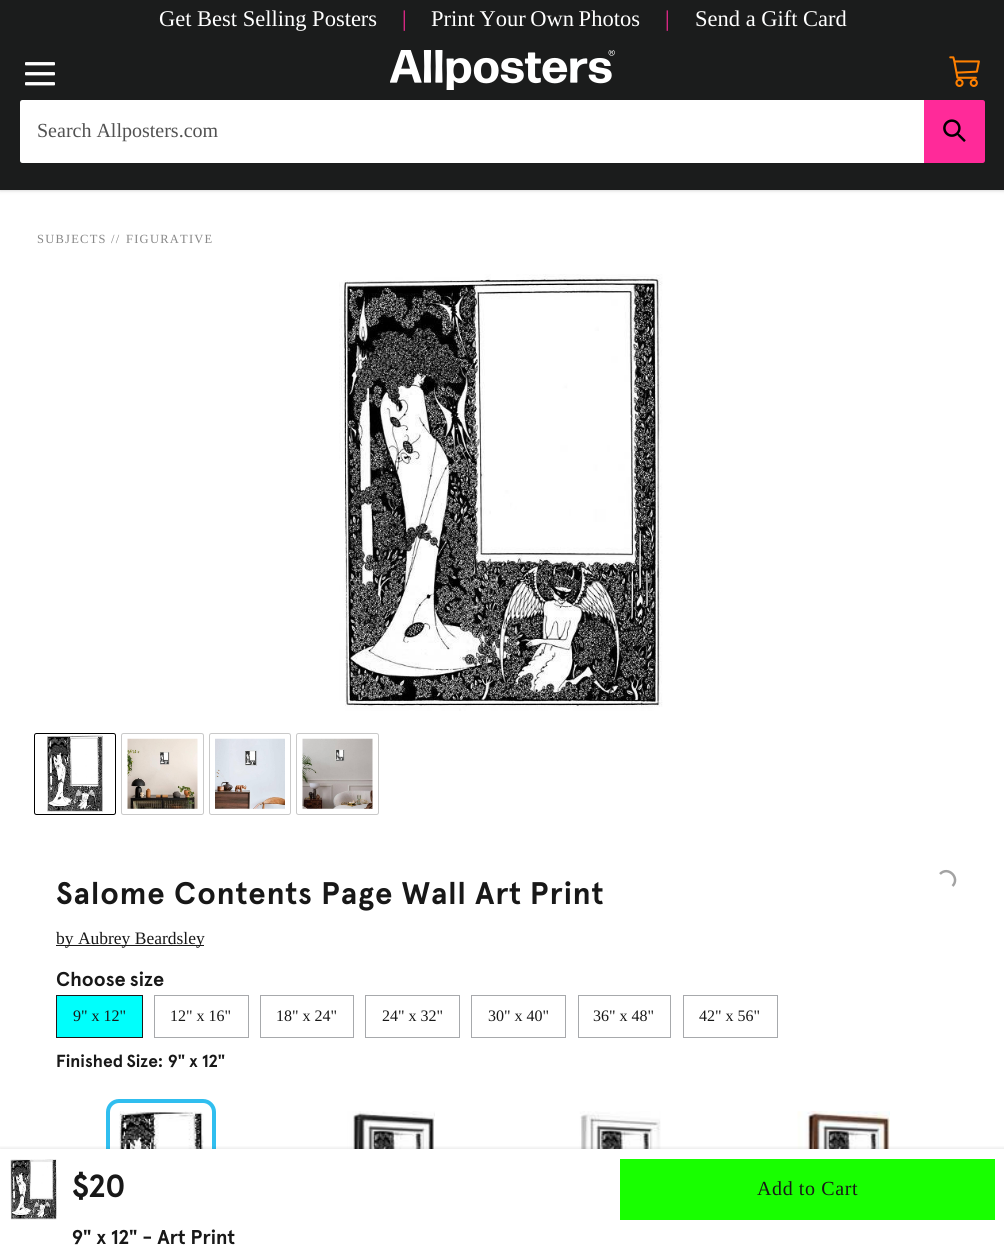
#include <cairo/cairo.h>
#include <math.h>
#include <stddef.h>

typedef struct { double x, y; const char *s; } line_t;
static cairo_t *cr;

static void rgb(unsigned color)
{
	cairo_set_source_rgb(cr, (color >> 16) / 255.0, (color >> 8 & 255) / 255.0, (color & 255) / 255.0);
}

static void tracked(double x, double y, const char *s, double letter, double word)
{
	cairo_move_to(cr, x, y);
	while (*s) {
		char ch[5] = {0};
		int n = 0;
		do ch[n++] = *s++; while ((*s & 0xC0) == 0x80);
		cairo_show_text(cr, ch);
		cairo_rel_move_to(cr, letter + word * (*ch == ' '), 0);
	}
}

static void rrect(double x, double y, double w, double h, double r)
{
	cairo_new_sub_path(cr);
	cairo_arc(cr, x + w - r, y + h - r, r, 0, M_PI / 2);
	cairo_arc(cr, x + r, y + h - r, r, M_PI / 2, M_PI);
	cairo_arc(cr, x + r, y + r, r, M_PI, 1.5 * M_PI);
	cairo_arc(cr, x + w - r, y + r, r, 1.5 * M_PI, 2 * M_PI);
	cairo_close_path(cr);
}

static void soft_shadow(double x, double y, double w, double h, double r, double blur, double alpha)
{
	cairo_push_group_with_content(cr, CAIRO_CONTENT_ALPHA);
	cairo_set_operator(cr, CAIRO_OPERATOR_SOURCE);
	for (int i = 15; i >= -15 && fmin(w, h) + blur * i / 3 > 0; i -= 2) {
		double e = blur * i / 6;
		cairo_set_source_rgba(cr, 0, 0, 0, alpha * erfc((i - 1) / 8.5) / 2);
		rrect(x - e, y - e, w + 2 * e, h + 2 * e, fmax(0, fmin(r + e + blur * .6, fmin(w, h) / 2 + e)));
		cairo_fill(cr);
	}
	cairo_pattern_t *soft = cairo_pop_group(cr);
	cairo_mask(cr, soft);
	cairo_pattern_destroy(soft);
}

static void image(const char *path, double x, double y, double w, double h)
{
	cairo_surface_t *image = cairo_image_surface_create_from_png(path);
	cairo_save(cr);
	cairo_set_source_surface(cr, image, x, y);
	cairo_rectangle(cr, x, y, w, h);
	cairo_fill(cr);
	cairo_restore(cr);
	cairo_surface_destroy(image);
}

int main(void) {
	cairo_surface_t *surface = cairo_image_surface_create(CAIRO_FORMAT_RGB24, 1004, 1255);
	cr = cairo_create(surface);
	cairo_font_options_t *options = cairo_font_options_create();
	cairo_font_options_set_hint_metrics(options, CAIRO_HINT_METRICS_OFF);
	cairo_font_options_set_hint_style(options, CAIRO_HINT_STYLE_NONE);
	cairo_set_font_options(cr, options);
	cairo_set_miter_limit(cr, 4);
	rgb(0xffffff);
	cairo_paint(cr);
	rgb(0x000000);
	soft_shadow(0, 39, 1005, 152, 0, 1, 0.06);
	soft_shadow(0, 39, 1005, 152, 0, 2, 0.1);
	rgb(0x1b1c1c);
	cairo_rectangle(cr, 0, 0, 1004, 190);
	cairo_fill(cr);
	image("img/1.png", 25, 62, 30, 24);
	image("img/2.png", 390, 50, 225, 40);
	image("img/3.png", 949, 56, 31, 31);
	rgb(0xffffff);
	cairo_new_path(cr);
	cairo_move_to(cr, 22.5, 100);
	cairo_line_to(cr, 924, 100);
	cairo_line_to(cr, 924, 163);
	cairo_line_to(cr, 22.5, 163);
	cairo_curve_to(cr, 21, 163, 20, 162, 20, 160.5);
	cairo_line_to(cr, 20, 102.5);
	cairo_curve_to(cr, 20, 101, 21, 100, 22.5, 100);
	cairo_close_path(cr);
	cairo_fill(cr);
	rgb(0xff2a99);
	cairo_new_path(cr);
	cairo_move_to(cr, 924, 100);
	cairo_line_to(cr, 982.5, 100);
	cairo_curve_to(cr, 984, 100, 985, 101, 985, 102.5);
	cairo_line_to(cr, 985, 160.5);
	cairo_curve_to(cr, 985, 162, 984, 163, 982.5, 163);
	cairo_line_to(cr, 924, 163);
	cairo_close_path(cr);
	cairo_fill(cr);
	image("img/4.png", 943, 119, 23, 23);
	image("img/5.png", 339, 274, 324, 437);
	rrect(34.5, 733.5, 81, 81, 2);
	rgb(0x000000);
	cairo_set_line_width(cr, 1);
	cairo_stroke(cr);
	image("img/6.png", 47, 735, 56, 77);
	rrect(121.5, 733.5, 82, 81, 2);
	rgb(0xc9c9c9);
	cairo_stroke(cr);
	image("img/7.png", 127, 738, 71, 71);
	rrect(209.5, 733.5, 81, 81, 2);
	cairo_stroke(cr);
	image("img/8.png", 215, 738, 70, 71);
	rrect(296.5, 733.5, 82, 81, 2);
	cairo_stroke(cr);
	image("img/9.png", 302, 738, 71, 71);
	cairo_new_path(cr);
	cairo_move_to(cr, 940, 874);
	cairo_curve_to(cr, 948, 865.5, 960.5, 878, 952.5, 886);
	rgb(0xa3a3a3);
	cairo_set_line_width(cr, 2.5);
	cairo_stroke(cr);
	rgb(0x181818);
	cairo_rectangle(cr, 56, 945, 148, 1);
	cairo_fill(cr);
	rgb(0x00fffc);
	cairo_rectangle(cr, 56.5, 995.5, 86, 42);
	cairo_fill_preserve(cr);
	rgb(0x1b1c1c);
	cairo_set_line_width(cr, 1);
	cairo_stroke(cr);
	cairo_rectangle(cr, 154.5, 995.5, 94, 42);
	rgb(0xa7a9ac);
	cairo_stroke(cr);
	cairo_rectangle(cr, 260.5, 995.5, 93, 42);
	cairo_stroke(cr);
	cairo_rectangle(cr, 365.5, 995.5, 94, 42);
	cairo_stroke(cr);
	cairo_rectangle(cr, 471.5, 995.5, 94, 42);
	cairo_stroke(cr);
	cairo_rectangle(cr, 578.5, 995.5, 92, 42);
	cairo_stroke(cr);
	cairo_rectangle(cr, 683.5, 995.5, 94, 42);
	cairo_stroke(cr);
	rrect(108, 1101, 106, 133, 11);
	rgb(0x30beef);
	cairo_set_line_width(cr, 4);
	cairo_stroke(cr);
	image("img/10.png", 119, 1111, 85, 38);
	image("img/11.png", 347, 1111, 88, 38);
	image("img/12.png", 575, 1111, 86, 38);
	image("img/13.png", 797, 1111, 93, 38);
	rgb(0xffffff);
	cairo_rectangle(cr, 106, 1149, 110, 87);
	cairo_fill(cr);
	cairo_save(cr);
	cairo_rectangle(cr, 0, 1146, 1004, 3);
	cairo_clip(cr);
	rgb(0x000000);
	soft_shadow(0, 1148, 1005, 106, 0, 2, 0.1);
	cairo_restore(cr);
	image("img/14.png", 10, 1159, 47, 61);
	rgb(0x18ff00);
	cairo_rectangle(cr, 620, 1159, 375, 61);
	cairo_fill(cr);
	cairo_select_font_face(cr, "Liberation Serif", CAIRO_FONT_SLANT_NORMAL, CAIRO_FONT_WEIGHT_NORMAL);
	cairo_set_font_size(cr, 22.5);
	rgb(0xffffff);
	cairo_move_to(cr, 159, 26);
	cairo_show_text(cr, "Get Best Selling Posters");
	rgb(0xff2a99);
	cairo_move_to(cr, 402, 26);
	cairo_show_text(cr, "|");
	rgb(0xffffff);
	tracked(431, 26, "Print Your Own Photos", 0, -1);
	rgb(0xff2a99);
	cairo_move_to(cr, 665, 26);
	cairo_show_text(cr, "|");
	rgb(0xffffff);
	cairo_move_to(cr, 695, 26);
	cairo_show_text(cr, "Send a Gift Card");
	cairo_set_font_size(cr, 20);
	rgb(0x525252);
	cairo_move_to(cr, 37, 137);
	cairo_show_text(cr, "Search Allposters.com");
	cairo_set_font_size(cr, 12.5);
	rgb(0x888888);
	{
		static const line_t items[] = {
			{37, 243, "SUBJECTS"},
			{111, 243, "//"},
			{126, 243, "FIGURATIVE"},
		};
		for (size_t i = 0; i < sizeof items / sizeof *items; i++) {
			tracked(items[i].x, items[i].y, items[i].s, 1.25, 0);
		}
	}
	cairo_select_font_face(cr, "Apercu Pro", CAIRO_FONT_SLANT_NORMAL, CAIRO_FONT_WEIGHT_BOLD);
	cairo_set_font_size(cr, 31.25);
	rgb(0x181818);
	tracked(56, 904, "Salome Contents Page Wall Art Print", 0.95, -0.5);
	cairo_select_font_face(cr, "Liberation Serif", CAIRO_FONT_SLANT_NORMAL, CAIRO_FONT_WEIGHT_NORMAL);
	cairo_set_font_size(cr, 17.5);
	cairo_move_to(cr, 56, 944);
	cairo_show_text(cr, "by Aubrey Beardsley");
	cairo_select_font_face(cr, "Apercu Pro", CAIRO_FONT_SLANT_NORMAL, CAIRO_FONT_WEIGHT_BOLD);
	cairo_set_font_size(cr, 20);
	tracked(56, 986, "Choose size", 0, -1);
	cairo_select_font_face(cr, "Liberation Serif", CAIRO_FONT_SLANT_NORMAL, CAIRO_FONT_WEIGHT_NORMAL);
	cairo_set_font_size(cr, 16);
	{
		static const line_t items[] = {
			{73, 1021, "9\" x 12\""},
			{170, 1021, "12\" x 16\""},
			{276, 1021, "18\" x 24\""},
			{382, 1021, "24\" x 32\""},
			{488, 1021, "30\" x 40\""},
			{593, 1021, "36\" x 48\""},
			{699, 1021, "42\" x 56\""},
		};
		for (size_t i = 0; i < sizeof items / sizeof *items; i++) {
			cairo_move_to(cr, items[i].x, items[i].y);
			cairo_show_text(cr, items[i].s);
		}
	}
	cairo_select_font_face(cr, "Apercu Pro", CAIRO_FONT_SLANT_NORMAL, CAIRO_FONT_WEIGHT_BOLD);
	cairo_set_font_size(cr, 17.5);
	tracked(56, 1067, "Finished Size:", 0, -1);
	cairo_move_to(cr, 168, 1067);
	cairo_show_text(cr, "9\" x 12\"");
	cairo_set_font_size(cr, 32);
	cairo_move_to(cr, 72, 1197);
	cairo_show_text(cr, "$20");
	cairo_select_font_face(cr, "Liberation Serif", CAIRO_FONT_SLANT_NORMAL, CAIRO_FONT_WEIGHT_NORMAL);
	cairo_set_font_size(cr, 20);
	tracked(757, 1195, "Add to Cart", 0.6, 0);
	cairo_select_font_face(cr, "Apercu Pro", CAIRO_FONT_SLANT_NORMAL, CAIRO_FONT_WEIGHT_BOLD);
	cairo_move_to(cr, 72, 1244);
	cairo_show_text(cr, "9\" x 12\" - Art Print");
	cairo_surface_write_to_png(surface, "page.png");
	cairo_font_options_destroy(options);
	cairo_destroy(cr);
	cairo_surface_destroy(surface);
	return 0;
}
